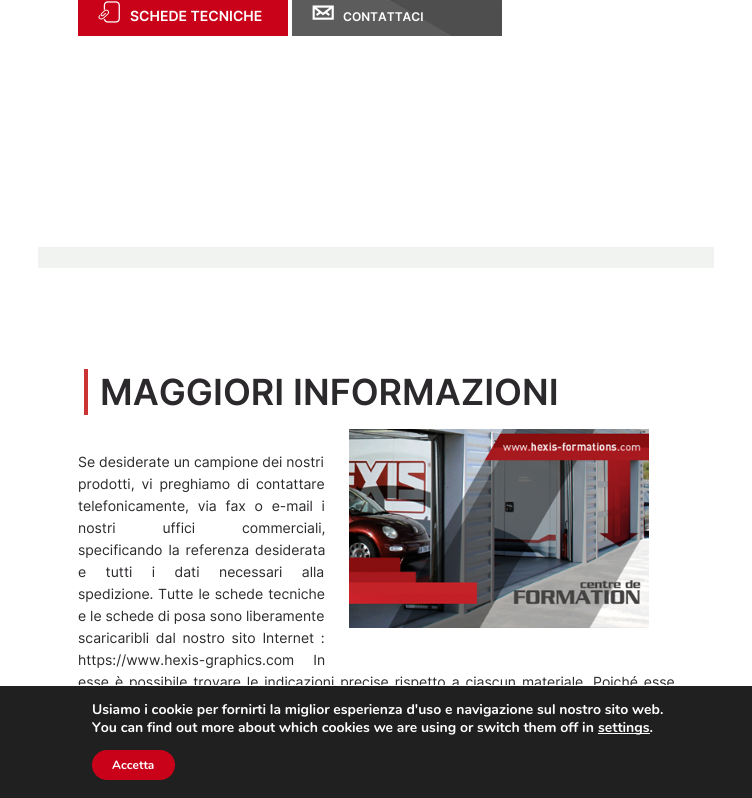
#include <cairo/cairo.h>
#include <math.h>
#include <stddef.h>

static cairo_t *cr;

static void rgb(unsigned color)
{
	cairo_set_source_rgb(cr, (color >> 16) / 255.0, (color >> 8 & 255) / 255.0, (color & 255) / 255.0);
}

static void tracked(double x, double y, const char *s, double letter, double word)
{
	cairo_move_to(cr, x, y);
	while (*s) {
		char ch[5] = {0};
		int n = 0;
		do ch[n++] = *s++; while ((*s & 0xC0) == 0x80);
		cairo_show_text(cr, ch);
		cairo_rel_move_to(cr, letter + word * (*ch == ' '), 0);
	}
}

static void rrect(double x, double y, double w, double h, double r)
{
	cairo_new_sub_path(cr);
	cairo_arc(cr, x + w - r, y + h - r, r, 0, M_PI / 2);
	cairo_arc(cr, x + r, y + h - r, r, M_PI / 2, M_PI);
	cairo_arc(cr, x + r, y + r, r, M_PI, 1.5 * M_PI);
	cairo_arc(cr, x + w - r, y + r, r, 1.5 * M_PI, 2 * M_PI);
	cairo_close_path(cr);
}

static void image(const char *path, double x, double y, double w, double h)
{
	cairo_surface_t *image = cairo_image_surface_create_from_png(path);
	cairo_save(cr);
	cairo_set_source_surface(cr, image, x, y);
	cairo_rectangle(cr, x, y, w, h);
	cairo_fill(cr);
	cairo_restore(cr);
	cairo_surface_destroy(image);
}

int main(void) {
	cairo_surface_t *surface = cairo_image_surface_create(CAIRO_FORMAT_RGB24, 752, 798);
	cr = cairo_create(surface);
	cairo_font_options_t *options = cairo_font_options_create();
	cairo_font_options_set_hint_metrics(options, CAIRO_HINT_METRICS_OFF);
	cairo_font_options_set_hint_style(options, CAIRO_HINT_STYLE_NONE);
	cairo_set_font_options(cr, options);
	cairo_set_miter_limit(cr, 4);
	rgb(0xffffff);
	cairo_paint(cr);
	rgb(0xc90119);
	cairo_rectangle(cr, 78, 0, 210, 36);
	cairo_fill(cr);
	image("img/1.png", 98, 1, 22, 22);
	image("img/2.png", 292, 0, 210, 36);
	image("img/3.png", 312, 5, 22, 15);
	rgb(0xf1f3f1);
	cairo_rectangle(cr, 38, 247, 676, 21);
	cairo_fill(cr);
	rgb(0xcc3333);
	cairo_rectangle(cr, 84, 369, 4, 46);
	cairo_fill(cr);
	image("img/4.png", 349, 429, 300, 199);
	cairo_select_font_face(cr, "Inter SemiBold", CAIRO_FONT_SLANT_NORMAL, CAIRO_FONT_WEIGHT_NORMAL);
	cairo_set_font_size(cr, 14);
	rgb(0xffffff);
	cairo_move_to(cr, 130, 21);
	cairo_show_text(cr, "SCHEDE TECNICHE");
	cairo_set_font_size(cr, 12);
	cairo_move_to(cr, 343, 21);
	cairo_show_text(cr, "CONTATTACI");
	cairo_set_font_size(cr, 36);
	rgb(0x2c292c);
	cairo_move_to(cr, 100, 405);
	cairo_show_text(cr, "MAGGIORI INFORMAZIONI");
	cairo_select_font_face(cr, "Inter", CAIRO_FONT_SLANT_NORMAL, CAIRO_FONT_WEIGHT_NORMAL);
	cairo_set_font_size(cr, 14);
	cairo_move_to(cr, 78, 467);
	cairo_show_text(cr, "Se desiderate un campione dei nostri");
	tracked(78, 489, "prodotti, vi preghiamo", 0, 3);
	tracked(237, 489, "di contattare", 0, 3);
	tracked(78, 511, "telefonicamente, via fax o e-mail i", 0, 4.75);
	tracked(78, 533, "nostri uffici commerciali,", 0, 43);
	tracked(78, 555, "specificando la referenza desiderata", 0, 2);
	tracked(78, 577, "e tutti i dati necessari alla", 0, 15.5);
	cairo_move_to(cr, 78, 599);
	cairo_show_text(cr, "spedizione.");
	tracked(158, 599, "Tutte le schede tecniche", 0, 1);
	cairo_move_to(cr, 78, 621);
	cairo_show_text(cr, "e le schede di posa sono liberamente");
	tracked(78, 643, "scaricaribli dal nostro sito Internet :", 0, 2.75);
	tracked(78, 665, "https://www.hexis-graphics.com In", 0, 15);
	tracked(78, 687, "esse è possibile trovare le indicazioni precise rispetto a ciascun materiale", 0, 2);
	tracked(593, 687, "Poiché esse", 0, 2);
	rgb(0x202020);
	cairo_rectangle(cr, 0, 686, 752, 112);
	cairo_fill(cr);
	rgb(0xffffff);
	cairo_rectangle(cr, 78, 685, 596, 1);
	cairo_fill(cr);
	cairo_select_font_face(cr, "Nunito", CAIRO_FONT_SLANT_NORMAL, CAIRO_FONT_WEIGHT_BOLD);
	cairo_move_to(cr, 92, 714);
	cairo_show_text(cr, "Usiamo i cookie per fornirti la miglior esperienza d'uso e navigazione sul nostro sito web.");
	cairo_move_to(cr, 92, 732);
	cairo_show_text(cr, "You can find out more about which cookies we are using or switch them off in");
	cairo_rectangle(cr, 598, 733, 52, 1);
	cairo_fill(cr);
	cairo_move_to(cr, 598, 732);
	cairo_show_text(cr, "settings.");
	rgb(0xc90119);
	rrect(92, 750, 83, 30, 15);
	cairo_fill(cr);
	cairo_set_font_size(cr, 12);
	rgb(0xffffff);
	cairo_move_to(cr, 112, 769);
	cairo_show_text(cr, "Accetta");
	cairo_surface_write_to_png(surface, "page.png");
	cairo_font_options_destroy(options);
	cairo_destroy(cr);
	cairo_surface_destroy(surface);
	return 0;
}
